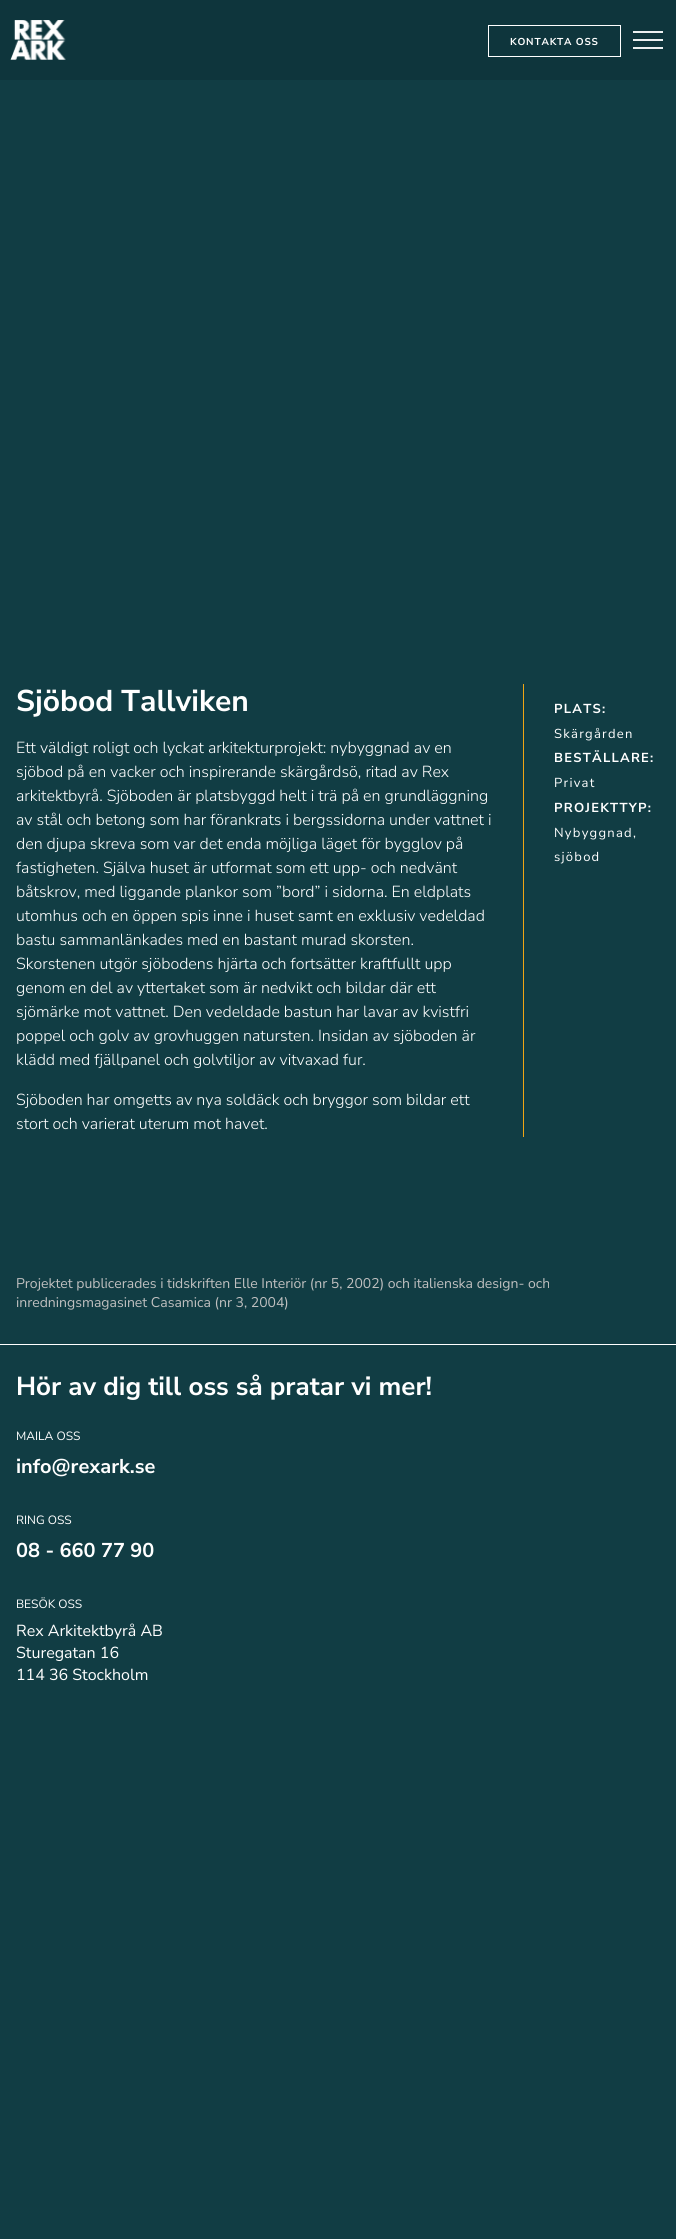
#include <cairo/cairo.h>
#include <math.h>
#include <stddef.h>

typedef struct { double x, y; const char *s; } line_t;
typedef struct { double x, y, w, h; unsigned color; } box_t;
static cairo_t *cr;

static void rgb(unsigned color)
{
	cairo_set_source_rgb(cr, (color >> 16) / 255.0, (color >> 8 & 255) / 255.0, (color & 255) / 255.0);
}

static void tracked(double x, double y, const char *s, double letter, double word)
{
	cairo_move_to(cr, x, y);
	while (*s) {
		char ch[5] = {0};
		int n = 0;
		do ch[n++] = *s++; while ((*s & 0xC0) == 0x80);
		cairo_show_text(cr, ch);
		cairo_rel_move_to(cr, letter + word * (*ch == ' '), 0);
	}
}

static void image(const char *path, double x, double y, double w, double h)
{
	cairo_surface_t *image = cairo_image_surface_create_from_png(path);
	cairo_save(cr);
	cairo_set_source_surface(cr, image, x, y);
	cairo_rectangle(cr, x, y, w, h);
	cairo_fill(cr);
	cairo_restore(cr);
	cairo_surface_destroy(image);
}

int main(void) {
	cairo_surface_t *surface = cairo_image_surface_create(CAIRO_FORMAT_RGB24, 676, 2239);
	cr = cairo_create(surface);
	cairo_font_options_t *options = cairo_font_options_create();
	cairo_font_options_set_hint_metrics(options, CAIRO_HINT_METRICS_OFF);
	cairo_font_options_set_hint_style(options, CAIRO_HINT_STYLE_NONE);
	cairo_set_font_options(cr, options);
	cairo_set_miter_limit(cr, 4);
	rgb(0x113d44);
	cairo_paint(cr);
	rgb(0x0e353c);
	cairo_rectangle(cr, 0, 0, 676, 80);
	cairo_fill(cr);
	image("img/1.png", 10, 20, 56, 40);
	cairo_rectangle(cr, 488.5, 25.5, 132, 31);
	rgb(0xffffff);
	cairo_set_line_width(cr, 1);
	cairo_stroke(cr);
	{
		static const box_t items[] = {
			{633, 31, 30, 2, 0xecf0f1},
			{633, 39, 30, 2, 0xecf0f1},
			{633, 47, 30, 2, 0xecf0f1},
			{523, 684, 1, 453, 0xf0a514},
			{0, 1344, 676, 1, 0xffffff},
		};
		for (size_t i = 0; i < sizeof items / sizeof *items; i++) {
			rgb(items[i].color);
			cairo_rectangle(cr, items[i].x, items[i].y, items[i].w, items[i].h);
			cairo_fill(cr);
		}
	}
	cairo_select_font_face(cr, "Nunito Sans", CAIRO_FONT_SLANT_NORMAL, CAIRO_FONT_WEIGHT_BOLD);
	cairo_set_font_size(cr, 10);
	tracked(510, 45, "KONTAKTA OSS", 0.8, 0);
	cairo_set_font_size(cr, 30);
	cairo_move_to(cr, 16, 711);
	cairo_show_text(cr, "Sjöbod Tallviken");
	cairo_select_font_face(cr, "Nunito Sans Light", CAIRO_FONT_SLANT_NORMAL, CAIRO_FONT_WEIGHT_NORMAL);
	cairo_set_font_size(cr, 16);
	{
		static const line_t items[] = {
			{16, 753, "Ett väldigt roligt och lyckat arkitekturprojekt: nybyggnad av en"},
			{16, 777, "sjöbod på en vacker och inspirerande skärgårdsö, ritad av Rex"},
			{16, 801, "arkitektbyrå. Sjöboden är platsbyggd helt i trä på en grundläggning"},
			{16, 825, "av stål och betong som har förankrats i bergssidorna under vattnet i"},
			{16, 849, "den djupa skreva som var det enda möjliga läget för bygglov på"},
			{16, 873, "fastigheten. Själva huset är utformat som ett upp- och nedvänt"},
			{16, 897, "båtskrov, med liggande plankor som ”bord” i sidorna. En eldplats"},
			{16, 921, "utomhus och en öppen spis inne i huset samt en exklusiv vedeldad"},
			{16, 945, "bastu sammanlänkades med en bastant murad skorsten."},
			{16, 969, "Skorstenen utgör sjöbodens hjärta och fortsätter kraftfullt upp"},
			{16, 993, "genom en del av yttertaket som är nedvikt och bildar där ett"},
			{16, 1017, "sjömärke mot vattnet. Den vedeldade bastun har lavar av kvistfri"},
			{16, 1041, "poppel och golv av grovhuggen natursten. Insidan av sjöboden är"},
			{16, 1065, "klädd med fjällpanel och golvtiljor av vitvaxad fur."},
			{16, 1105, "Sjöboden har omgetts av nya soldäck och bryggor som bildar ett"},
			{16, 1129, "stort och varierat uterum mot havet."},
		};
		for (size_t i = 0; i < sizeof items / sizeof *items; i++) {
			cairo_move_to(cr, items[i].x, items[i].y);
			cairo_show_text(cr, items[i].s);
		}
	}
	cairo_select_font_face(cr, "Nunito Sans", CAIRO_FONT_SLANT_NORMAL, CAIRO_FONT_WEIGHT_BOLD);
	cairo_set_font_size(cr, 13);
	tracked(554, 713, "PLATS:", 1.25, 0);
	cairo_select_font_face(cr, "Nunito Sans", CAIRO_FONT_SLANT_NORMAL, CAIRO_FONT_WEIGHT_NORMAL);
	tracked(554, 738, "Skärgården", 1.25, 0);
	cairo_select_font_face(cr, "Nunito Sans", CAIRO_FONT_SLANT_NORMAL, CAIRO_FONT_WEIGHT_BOLD);
	tracked(554, 762, "BESTÄLLARE:", 1.25, 0);
	cairo_select_font_face(cr, "Nunito Sans", CAIRO_FONT_SLANT_NORMAL, CAIRO_FONT_WEIGHT_NORMAL);
	tracked(554, 787, "Privat", 1.25, 0);
	cairo_select_font_face(cr, "Nunito Sans", CAIRO_FONT_SLANT_NORMAL, CAIRO_FONT_WEIGHT_BOLD);
	tracked(554, 812, "PROJEKTTYP:", 1.25, 0);
	cairo_select_font_face(cr, "Nunito Sans", CAIRO_FONT_SLANT_NORMAL, CAIRO_FONT_WEIGHT_NORMAL);
	tracked(554, 837, "Nybyggnad,", 1.25, 0);
	tracked(554, 861, "sjöbod", 1.25, 0);
	cairo_set_font_size(cr, 14);
	rgb(0xc0c0c0);
	cairo_move_to(cr, 16, 1288);
	cairo_show_text(cr, "Projektet publicerades i tidskriften Elle Interiör (nr 5, 2002) och italienska design- och");
	cairo_move_to(cr, 16, 1307);
	cairo_show_text(cr, "inredningsmagasinet Casamica (nr 3, 2004)");
	cairo_select_font_face(cr, "Nunito Sans", CAIRO_FONT_SLANT_NORMAL, CAIRO_FONT_WEIGHT_BOLD);
	cairo_set_font_size(cr, 26);
	rgb(0xffffff);
	cairo_move_to(cr, 16, 1395);
	cairo_show_text(cr, "Hör av dig till oss så pratar vi mer!");
	cairo_select_font_face(cr, "Nunito Sans", CAIRO_FONT_SLANT_NORMAL, CAIRO_FONT_WEIGHT_NORMAL);
	cairo_set_font_size(cr, 12);
	cairo_move_to(cr, 16, 1440);
	cairo_show_text(cr, "MAILA OSS");
	cairo_select_font_face(cr, "Nunito Sans", CAIRO_FONT_SLANT_NORMAL, CAIRO_FONT_WEIGHT_BOLD);
	cairo_set_font_size(cr, 20);
	cairo_move_to(cr, 16, 1473);
	cairo_show_text(cr, "info@rexark.se");
	cairo_select_font_face(cr, "Nunito Sans", CAIRO_FONT_SLANT_NORMAL, CAIRO_FONT_WEIGHT_NORMAL);
	cairo_set_font_size(cr, 12);
	cairo_move_to(cr, 16, 1524);
	cairo_show_text(cr, "RING OSS");
	cairo_select_font_face(cr, "Nunito Sans", CAIRO_FONT_SLANT_NORMAL, CAIRO_FONT_WEIGHT_BOLD);
	cairo_set_font_size(cr, 20);
	cairo_move_to(cr, 16, 1557);
	cairo_show_text(cr, "08 - 660 77 90");
	cairo_select_font_face(cr, "Nunito Sans", CAIRO_FONT_SLANT_NORMAL, CAIRO_FONT_WEIGHT_NORMAL);
	cairo_set_font_size(cr, 12);
	cairo_move_to(cr, 16, 1608);
	cairo_show_text(cr, "BESÖK OSS");
	cairo_set_font_size(cr, 16);
	{
		static const line_t items[] = {
			{16, 1636, "Rex Arkitektbyrå AB"},
			{16, 1658, "Sturegatan 16"},
			{16, 1680, "114 36 Stockholm"},
		};
		for (size_t i = 0; i < sizeof items / sizeof *items; i++) {
			cairo_move_to(cr, items[i].x, items[i].y);
			cairo_show_text(cr, items[i].s);
		}
	}
	cairo_surface_write_to_png(surface, "page.png");
	cairo_font_options_destroy(options);
	cairo_destroy(cr);
	cairo_surface_destroy(surface);
	return 0;
}
